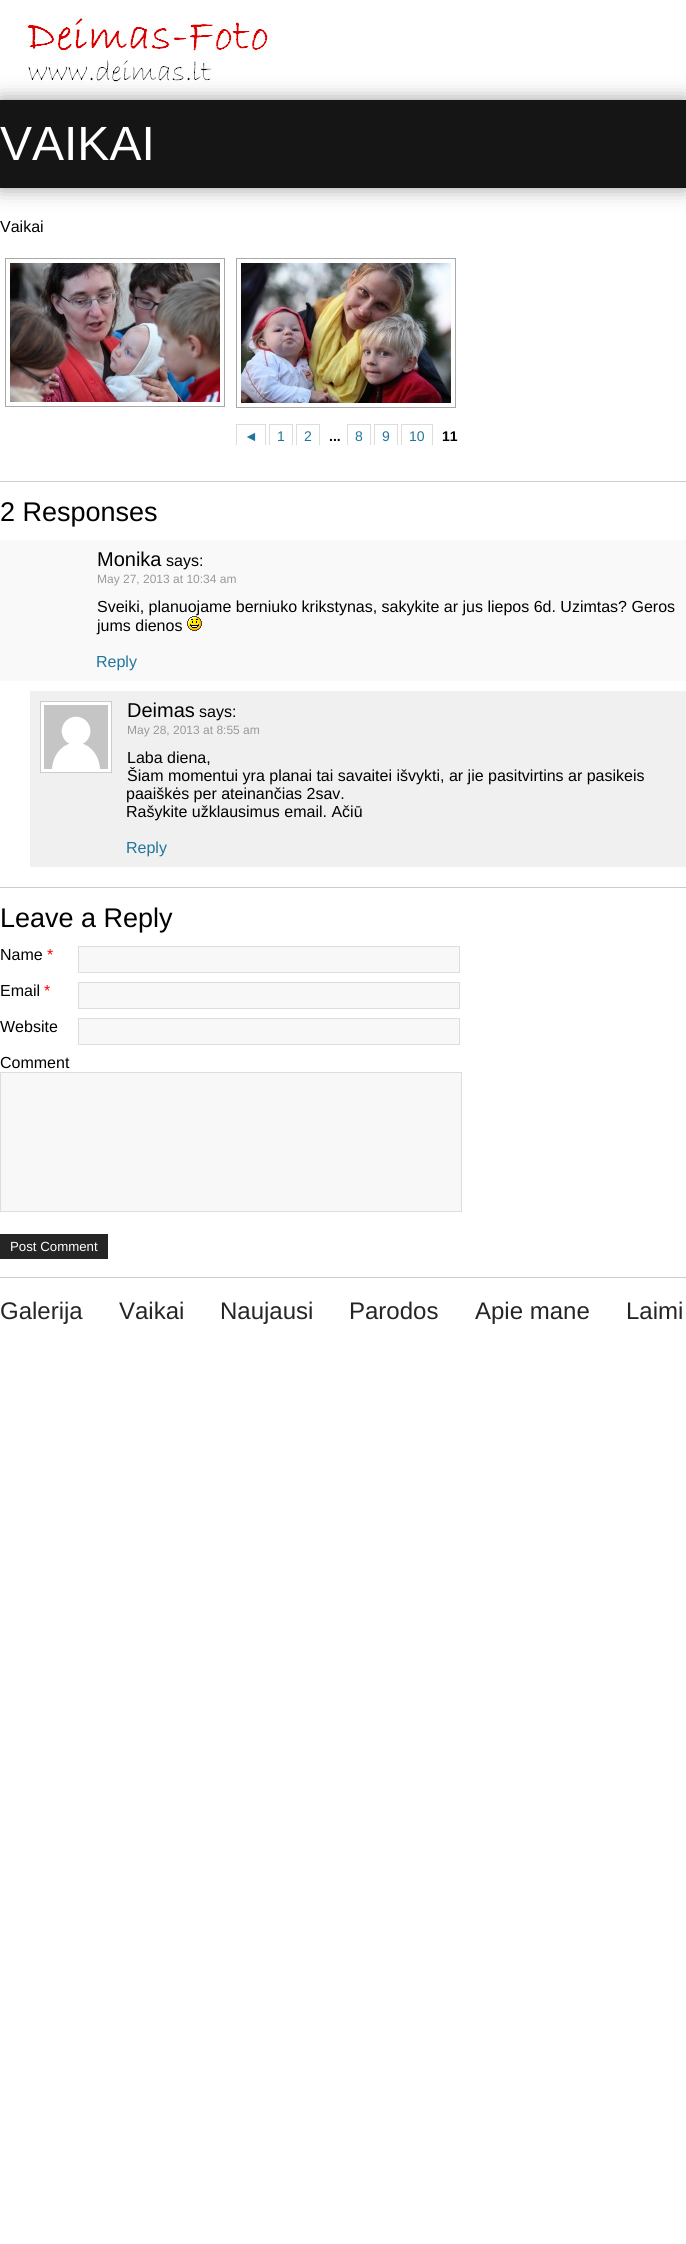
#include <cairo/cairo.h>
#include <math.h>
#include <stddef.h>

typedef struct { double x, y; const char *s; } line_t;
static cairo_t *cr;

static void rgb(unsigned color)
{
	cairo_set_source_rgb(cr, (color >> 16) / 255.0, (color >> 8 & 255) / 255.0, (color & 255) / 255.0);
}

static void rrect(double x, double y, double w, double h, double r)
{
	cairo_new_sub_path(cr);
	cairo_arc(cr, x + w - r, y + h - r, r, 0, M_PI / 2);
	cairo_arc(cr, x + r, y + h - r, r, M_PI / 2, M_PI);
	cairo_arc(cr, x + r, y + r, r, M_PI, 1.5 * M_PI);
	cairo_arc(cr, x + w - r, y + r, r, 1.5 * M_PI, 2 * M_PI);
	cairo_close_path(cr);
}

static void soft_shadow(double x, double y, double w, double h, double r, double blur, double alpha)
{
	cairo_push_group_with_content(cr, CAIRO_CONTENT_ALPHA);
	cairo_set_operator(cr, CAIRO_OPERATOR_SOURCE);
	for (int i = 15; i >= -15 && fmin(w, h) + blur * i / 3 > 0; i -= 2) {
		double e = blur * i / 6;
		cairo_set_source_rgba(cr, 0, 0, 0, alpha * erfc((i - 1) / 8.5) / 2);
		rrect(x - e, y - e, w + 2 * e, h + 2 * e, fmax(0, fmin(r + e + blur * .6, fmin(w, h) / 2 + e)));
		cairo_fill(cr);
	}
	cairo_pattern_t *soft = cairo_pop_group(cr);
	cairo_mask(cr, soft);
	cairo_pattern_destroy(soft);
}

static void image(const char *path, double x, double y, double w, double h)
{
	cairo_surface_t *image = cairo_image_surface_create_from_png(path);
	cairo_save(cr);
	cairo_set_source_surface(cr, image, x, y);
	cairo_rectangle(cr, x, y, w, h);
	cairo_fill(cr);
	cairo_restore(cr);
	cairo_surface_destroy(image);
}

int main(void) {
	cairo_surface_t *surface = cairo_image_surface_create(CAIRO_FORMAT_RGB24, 686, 2244);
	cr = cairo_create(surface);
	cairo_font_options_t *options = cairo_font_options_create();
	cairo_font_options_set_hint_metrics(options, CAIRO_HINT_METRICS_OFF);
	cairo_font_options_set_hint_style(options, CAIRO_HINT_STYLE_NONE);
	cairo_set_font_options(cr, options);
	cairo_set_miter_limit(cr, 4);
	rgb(0xffffff);
	cairo_paint(cr);
	image("img/1.png", 24, 16, 248, 71);
	rgb(0x999999);
	soft_shadow(0, 100, 686, 88, 0, 10, 1);
	rgb(0x151515);
	cairo_rectangle(cr, 0, 100, 686, 88);
	cairo_fill(cr);
	rgb(0xcccccc);
	cairo_rectangle(cr, 0, 1277, 686, 1);
	cairo_fill(cr);
	cairo_rectangle(cr, 5.5, 258.5, 219, 148);
	rgb(0xa9a9a9);
	cairo_set_line_width(cr, 1);
	cairo_stroke(cr);
	image("img/2.png", 10, 263, 210, 139);
	cairo_rectangle(cr, 236.5, 258.5, 219, 149);
	cairo_stroke(cr);
	image("img/3.png", 241, 263, 210, 140);
	cairo_save(cr);
	cairo_rectangle(cr, 0, 254, 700, 191);
	cairo_clip(cr);
	cairo_rectangle(cr, 236.5, 424.5, 29, 23);
	rgb(0xdddddd);
	cairo_stroke(cr);
	cairo_rectangle(cr, 269.5, 424.5, 23, 23);
	cairo_stroke(cr);
	cairo_rectangle(cr, 296.5, 424.5, 23, 23);
	cairo_stroke(cr);
	cairo_rectangle(cr, 347.5, 424.5, 23, 23);
	cairo_stroke(cr);
	cairo_rectangle(cr, 374.5, 424.5, 23, 23);
	cairo_stroke(cr);
	cairo_rectangle(cr, 401.5, 424.5, 31, 23);
	cairo_stroke(cr);
	cairo_restore(cr);
	rgb(0xcccccc);
	cairo_rectangle(cr, 0, 481, 686, 1);
	cairo_fill(cr);
	rgb(0xf9f9f9);
	cairo_rectangle(cr, 0, 540, 686, 141);
	cairo_fill(cr);
	image("img/4.png", 187, 616, 15, 15);
	rgb(0xf0f0f0);
	cairo_rectangle(cr, 30, 691, 656, 176);
	cairo_fill(cr);
	rgb(0xffffff);
	cairo_rectangle(cr, 40.5, 701.5, 71, 71);
	cairo_fill_preserve(cr);
	rgb(0xcccccc);
	cairo_stroke(cr);
	image("img/5.png", 44, 705, 64, 64);
	cairo_rectangle(cr, 0, 887, 686, 1);
	cairo_fill(cr);
	rgb(0xf8f8f8);
	cairo_rectangle(cr, 78.5, 946.5, 381, 26);
	cairo_fill_preserve(cr);
	rgb(0xdddddd);
	cairo_stroke(cr);
	rgb(0xf8f8f8);
	cairo_rectangle(cr, 78.5, 982.5, 381, 26);
	cairo_fill_preserve(cr);
	rgb(0xdddddd);
	cairo_stroke(cr);
	rgb(0xf8f8f8);
	cairo_rectangle(cr, 78.5, 1018.5, 381, 26);
	cairo_fill_preserve(cr);
	rgb(0xdddddd);
	cairo_stroke(cr);
	rgb(0xf8f8f8);
	cairo_rectangle(cr, 0.5, 1072.5, 461, 139);
	cairo_fill_preserve(cr);
	rgb(0xdddddd);
	cairo_stroke(cr);
	rgb(0x252525);
	cairo_rectangle(cr, 0, 1234, 108, 25);
	cairo_fill(cr);
	cairo_select_font_face(cr, "Liberation Sans", CAIRO_FONT_SLANT_NORMAL, CAIRO_FONT_WEIGHT_NORMAL);
	cairo_set_font_size(cr, 48);
	rgb(0xffffff);
	cairo_move_to(cr, 0, 160);
	cairo_show_text(cr, "VAIKAI");
	cairo_set_font_size(cr, 16);
	rgb(0x000000);
	cairo_move_to(cr, 0, 232);
	cairo_show_text(cr, "Vaikai");
	cairo_set_font_size(cr, 14);
	rgb(0x21759b);
	{
		static const line_t items[] = {
			{244, 441, "◄"},
			{277, 441, "1"},
			{304, 441, "2"},
		};
		for (size_t i = 0; i < sizeof items / sizeof *items; i++) {
			cairo_move_to(cr, items[i].x, items[i].y);
			cairo_show_text(cr, items[i].s);
		}
	}
	cairo_select_font_face(cr, "Liberation Sans", CAIRO_FONT_SLANT_NORMAL, CAIRO_FONT_WEIGHT_BOLD);
	rgb(0x000000);
	cairo_move_to(cr, 329, 441);
	cairo_show_text(cr, "...");
	cairo_select_font_face(cr, "Liberation Sans", CAIRO_FONT_SLANT_NORMAL, CAIRO_FONT_WEIGHT_NORMAL);
	rgb(0x21759b);
	{
		static const line_t items[] = {
			{355, 441, "8"},
			{382, 441, "9"},
			{409, 441, "10"},
		};
		for (size_t i = 0; i < sizeof items / sizeof *items; i++) {
			cairo_move_to(cr, items[i].x, items[i].y);
			cairo_show_text(cr, items[i].s);
		}
	}
	cairo_select_font_face(cr, "Liberation Sans", CAIRO_FONT_SLANT_NORMAL, CAIRO_FONT_WEIGHT_BOLD);
	rgb(0x000000);
	cairo_move_to(cr, 442, 441);
	cairo_show_text(cr, "11");
	cairo_select_font_face(cr, "Liberation Sans", CAIRO_FONT_SLANT_NORMAL, CAIRO_FONT_WEIGHT_NORMAL);
	cairo_set_font_size(cr, 27);
	cairo_move_to(cr, 0, 521);
	cairo_show_text(cr, "2 Responses");
	cairo_set_font_size(cr, 20);
	cairo_move_to(cr, 97, 566);
	cairo_show_text(cr, "Monika");
	cairo_set_font_size(cr, 16);
	cairo_move_to(cr, 166, 566);
	cairo_show_text(cr, "says:");
	cairo_set_font_size(cr, 12);
	rgb(0x999999);
	cairo_move_to(cr, 97, 583);
	cairo_show_text(cr, "May 27, 2013 at 10:34 am");
	cairo_set_font_size(cr, 16);
	rgb(0x000000);
	cairo_move_to(cr, 97, 612);
	cairo_show_text(cr, "Sveiki, planuojame berniuko krikstynas, sakykite ar jus liepos 6d. Uzimtas? Geros");
	cairo_move_to(cr, 97, 631);
	cairo_show_text(cr, "jums dienos");
	rgb(0x21759b);
	cairo_move_to(cr, 96, 667);
	cairo_show_text(cr, "Reply");
	cairo_set_font_size(cr, 20);
	rgb(0x000000);
	cairo_move_to(cr, 127, 717);
	cairo_show_text(cr, "Deimas");
	cairo_set_font_size(cr, 16);
	cairo_move_to(cr, 199, 717);
	cairo_show_text(cr, "says:");
	cairo_set_font_size(cr, 12);
	rgb(0x999999);
	cairo_move_to(cr, 127, 734);
	cairo_show_text(cr, "May 28, 2013 at 8:55 am");
	cairo_set_font_size(cr, 16);
	rgb(0x000000);
	{
		static const line_t items[] = {
			{127, 763, "Laba diena,"},
			{127, 781, "Šiam momentui yra planai tai savaitei išvykti, ar jie pasitvirtins ar pasikeis"},
			{126, 799, "paaiškės per ateinančias 2sav."},
			{126, 817, "Rašykite užklausimus email. Ačiū"},
		};
		for (size_t i = 0; i < sizeof items / sizeof *items; i++) {
			cairo_move_to(cr, items[i].x, items[i].y);
			cairo_show_text(cr, items[i].s);
		}
	}
	rgb(0x21759b);
	cairo_move_to(cr, 126, 853);
	cairo_show_text(cr, "Reply");
	cairo_set_font_size(cr, 27);
	rgb(0x000000);
	cairo_move_to(cr, 0, 927);
	cairo_show_text(cr, "Leave a Reply");
	cairo_set_font_size(cr, 16);
	cairo_move_to(cr, 0, 960);
	cairo_show_text(cr, "Name");
	rgb(0xff0000);
	cairo_move_to(cr, 47, 960);
	cairo_show_text(cr, "*");
	rgb(0x000000);
	cairo_move_to(cr, 0, 996);
	cairo_show_text(cr, "Email");
	rgb(0xff0000);
	cairo_move_to(cr, 44, 996);
	cairo_show_text(cr, "*");
	rgb(0x000000);
	cairo_move_to(cr, 0, 1032);
	cairo_show_text(cr, "Website");
	cairo_move_to(cr, 0, 1068);
	cairo_show_text(cr, "Comment");
	cairo_set_font_size(cr, 13.25);
	rgb(0xffffff);
	cairo_move_to(cr, 10, 1251);
	cairo_show_text(cr, "Post Comment");
	cairo_set_font_size(cr, 24);
	rgb(0x252525);
	{
		static const line_t items[] = {
			{0, 1319, "Galerija"},
			{119, 1319, "Vaikai"},
			{220, 1319, "Naujausi"},
			{349, 1319, "Parodos"},
			{475, 1319, "Apie mane"},
			{626, 1319, "Laimi"},
		};
		for (size_t i = 0; i < sizeof items / sizeof *items; i++) {
			cairo_move_to(cr, items[i].x, items[i].y);
			cairo_show_text(cr, items[i].s);
		}
	}
	cairo_surface_write_to_png(surface, "page.png");
	cairo_font_options_destroy(options);
	cairo_destroy(cr);
	cairo_surface_destroy(surface);
	return 0;
}
